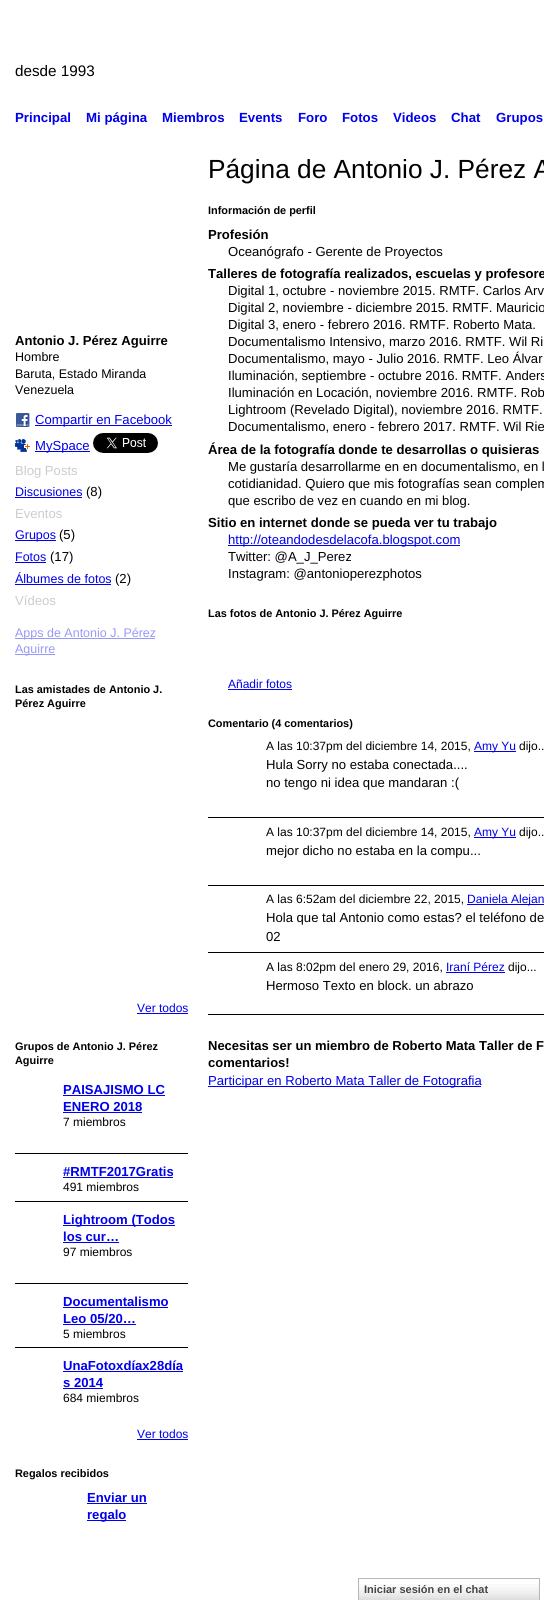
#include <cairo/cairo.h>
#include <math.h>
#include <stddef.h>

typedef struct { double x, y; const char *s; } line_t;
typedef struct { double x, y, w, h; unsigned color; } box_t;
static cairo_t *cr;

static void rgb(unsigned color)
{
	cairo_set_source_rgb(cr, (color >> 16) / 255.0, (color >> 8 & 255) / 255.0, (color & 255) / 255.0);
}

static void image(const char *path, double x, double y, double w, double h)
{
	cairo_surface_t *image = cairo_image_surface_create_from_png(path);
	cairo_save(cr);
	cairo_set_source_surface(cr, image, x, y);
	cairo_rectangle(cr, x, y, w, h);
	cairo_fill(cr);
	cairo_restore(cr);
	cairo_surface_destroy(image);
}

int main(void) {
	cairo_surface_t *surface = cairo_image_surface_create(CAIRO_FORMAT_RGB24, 544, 1600);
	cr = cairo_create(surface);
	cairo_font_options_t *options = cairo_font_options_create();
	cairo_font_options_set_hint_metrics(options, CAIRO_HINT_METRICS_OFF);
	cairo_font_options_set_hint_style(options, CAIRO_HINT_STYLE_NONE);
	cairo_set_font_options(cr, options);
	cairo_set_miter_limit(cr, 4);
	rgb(0xffffff);
	cairo_paint(cr);
	image("img/1.png", 16, 413, 14, 14);
	rgb(0x0000ee);
	cairo_rectangle(cr, 35, 425, 137, 1);
	cairo_fill(cr);
	image("img/2.png", 15, 439, 15, 13);
	cairo_rectangle(cr, 35, 451, 55, 1);
	cairo_fill(cr);
	image("img/3.png", 93, 433, 65, 20);
	{
		static const box_t items[] = {
			{15, 497, 67, 1, 0x0000ee},
			{15, 540, 41, 1, 0x0000ee},
			{15, 562, 31, 1, 0x0000ee},
			{15, 584, 96, 1, 0x0000ee},
			{15, 638, 140, 1, 0x9999f8},
			{15, 654, 40, 1, 0x9999f8},
			{137, 1013, 51, 1, 0x0000ee},
			{15, 1153, 173, 1, 0x000000},
			{63, 1095, 102, 1, 0x0000ee},
			{63, 1112, 79, 1, 0x0000ee},
			{15, 1201, 173, 1, 0x000000},
			{63, 1177, 110, 1, 0x0000ee},
			{15, 1283, 173, 1, 0x000000},
			{63, 1225, 112, 1, 0x0000ee},
			{63, 1242, 56, 1, 0x0000ee},
			{15, 1347, 173, 1, 0x000000},
			{63, 1307, 105, 1, 0x0000ee},
			{63, 1324, 73, 1, 0x0000ee},
			{63, 1371, 120, 1, 0x0000ee},
			{63, 1388, 40, 1, 0x0000ee},
			{137, 1439, 51, 1, 0x0000ee},
			{87, 1503, 60, 1, 0x0000ee},
			{87, 1520, 39, 1, 0x0000ee},
			{228, 545, 232, 1, 0x0000ee},
			{228, 689, 64, 1, 0x0000ee},
			{208, 817, 336, 1, 0x000000},
			{474, 751, 42, 1, 0x0000ee},
			{208, 885, 336, 1, 0x000000},
			{474, 837, 42, 1, 0x0000ee},
			{208, 952, 336, 1, 0x000000},
			{467, 904, 77, 1, 0x0000ee},
			{208, 1014, 336, 1, 0x000000},
			{446, 972, 59, 1, 0x0000ee},
			{208, 1086, 273, 1, 0x0000ee},
		};
		for (size_t i = 0; i < sizeof items / sizeof *items; i++) {
			rgb(items[i].color);
			cairo_rectangle(cr, items[i].x, items[i].y, items[i].w, items[i].h);
			cairo_fill(cr);
		}
	}
	image("img/4.png", 359, 1584, 180, 16);
	cairo_rectangle(cr, 358.5, 1578.5, 181, 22);
	rgb(0xb7b7b7);
	cairo_set_line_width(cr, 1);
	cairo_stroke(cr);
	cairo_select_font_face(cr, "Liberation Sans", CAIRO_FONT_SLANT_NORMAL, CAIRO_FONT_WEIGHT_NORMAL);
	cairo_set_font_size(cr, 15.25);
	rgb(0x000000);
	cairo_move_to(cr, 15, 76);
	cairo_show_text(cr, "desde 1993");
	cairo_select_font_face(cr, "Liberation Sans", CAIRO_FONT_SLANT_NORMAL, CAIRO_FONT_WEIGHT_BOLD);
	cairo_set_font_size(cr, 13.25);
	rgb(0x0000ee);
	{
		static const line_t items[] = {
			{15, 122, "Principal"},
			{86, 122, "Mi página"},
			{162, 122, "Miembros"},
			{239, 122, "Events"},
			{298, 122, "Foro"},
			{342, 122, "Fotos"},
			{393, 122, "Videos"},
			{451, 122, "Chat"},
			{496, 122, "Grupos"},
		};
		for (size_t i = 0; i < sizeof items / sizeof *items; i++) {
			cairo_move_to(cr, items[i].x, items[i].y);
			cairo_show_text(cr, items[i].s);
		}
	}
	cairo_set_font_size(cr, 13.1);
	rgb(0x000000);
	cairo_move_to(cr, 15, 345);
	cairo_show_text(cr, "Antonio J. Pérez Aguirre");
	cairo_select_font_face(cr, "Liberation Sans", CAIRO_FONT_SLANT_NORMAL, CAIRO_FONT_WEIGHT_NORMAL);
	cairo_set_font_size(cr, 12.5);
	{
		static const line_t items[] = {
			{15, 361, "Hombre"},
			{15, 378, "Baruta, Estado Miranda"},
			{15, 394, "Venezuela"},
		};
		for (size_t i = 0; i < sizeof items / sizeof *items; i++) {
			cairo_move_to(cr, items[i].x, items[i].y);
			cairo_show_text(cr, items[i].s);
		}
	}
	cairo_set_font_size(cr, 13.1);
	rgb(0x0000ee);
	cairo_move_to(cr, 35, 424);
	cairo_show_text(cr, "Compartir en Facebook");
	cairo_move_to(cr, 35, 450);
	cairo_show_text(cr, "MySpace");
	rgb(0xcccccc);
	cairo_move_to(cr, 15, 475);
	cairo_show_text(cr, "Blog Posts");
	cairo_set_font_size(cr, 12.5);
	rgb(0x0000ee);
	cairo_move_to(cr, 15, 496);
	cairo_show_text(cr, "Discusiones");
	cairo_set_font_size(cr, 13.1);
	rgb(0x000000);
	cairo_move_to(cr, 86, 496);
	cairo_show_text(cr, "(8)");
	rgb(0xcccccc);
	cairo_move_to(cr, 15, 518);
	cairo_show_text(cr, "Eventos");
	cairo_set_font_size(cr, 12.5);
	rgb(0x0000ee);
	cairo_move_to(cr, 15, 539);
	cairo_show_text(cr, "Grupos");
	cairo_set_font_size(cr, 13.1);
	rgb(0x000000);
	cairo_move_to(cr, 59, 539);
	cairo_show_text(cr, "(5)");
	cairo_set_font_size(cr, 12.5);
	rgb(0x0000ee);
	cairo_move_to(cr, 15, 561);
	cairo_show_text(cr, "Fotos");
	cairo_set_font_size(cr, 13.1);
	rgb(0x000000);
	cairo_move_to(cr, 50, 561);
	cairo_show_text(cr, "(17)");
	cairo_set_font_size(cr, 12.5);
	rgb(0x0000ee);
	cairo_move_to(cr, 15, 583);
	cairo_show_text(cr, "Álbumes de fotos");
	cairo_set_font_size(cr, 13.1);
	rgb(0x000000);
	cairo_move_to(cr, 115, 583);
	cairo_show_text(cr, "(2)");
	rgb(0xcccccc);
	cairo_move_to(cr, 15, 605);
	cairo_show_text(cr, "Vídeos");
	cairo_set_font_size(cr, 12.5);
	rgb(0x9999f8);
	cairo_move_to(cr, 15, 637);
	cairo_show_text(cr, "Apps de Antonio J. Pérez");
	cairo_move_to(cr, 15, 653);
	cairo_show_text(cr, "Aguirre");
	cairo_select_font_face(cr, "Liberation Sans", CAIRO_FONT_SLANT_NORMAL, CAIRO_FONT_WEIGHT_BOLD);
	cairo_set_font_size(cr, 10.9);
	rgb(0x000000);
	cairo_move_to(cr, 15, 693);
	cairo_show_text(cr, "Las amistades de Antonio J.");
	cairo_move_to(cr, 15, 707);
	cairo_show_text(cr, "Pérez Aguirre");
	cairo_select_font_face(cr, "Liberation Sans", CAIRO_FONT_SLANT_NORMAL, CAIRO_FONT_WEIGHT_NORMAL);
	cairo_set_font_size(cr, 12);
	rgb(0x0000ee);
	cairo_move_to(cr, 137, 1012);
	cairo_show_text(cr, "Ver todos");
	cairo_select_font_face(cr, "Liberation Sans", CAIRO_FONT_SLANT_NORMAL, CAIRO_FONT_WEIGHT_BOLD);
	cairo_set_font_size(cr, 10.9);
	rgb(0x000000);
	cairo_move_to(cr, 15, 1050);
	cairo_show_text(cr, "Grupos de Antonio J. Pérez");
	cairo_move_to(cr, 15, 1064);
	cairo_show_text(cr, "Aguirre");
	cairo_set_font_size(cr, 13.1);
	rgb(0x0000ee);
	cairo_move_to(cr, 63, 1094);
	cairo_show_text(cr, "PAISAJISMO LC");
	cairo_move_to(cr, 63, 1111);
	cairo_show_text(cr, "ENERO 2018");
	cairo_select_font_face(cr, "Liberation Sans", CAIRO_FONT_SLANT_NORMAL, CAIRO_FONT_WEIGHT_NORMAL);
	cairo_set_font_size(cr, 12);
	rgb(0x000000);
	cairo_move_to(cr, 63, 1126);
	cairo_show_text(cr, "7 miembros");
	cairo_select_font_face(cr, "Liberation Sans", CAIRO_FONT_SLANT_NORMAL, CAIRO_FONT_WEIGHT_BOLD);
	cairo_set_font_size(cr, 13.1);
	rgb(0x0000ee);
	cairo_move_to(cr, 63, 1176);
	cairo_show_text(cr, "#RMTF2017Gratis");
	cairo_select_font_face(cr, "Liberation Sans", CAIRO_FONT_SLANT_NORMAL, CAIRO_FONT_WEIGHT_NORMAL);
	cairo_set_font_size(cr, 12);
	rgb(0x000000);
	cairo_move_to(cr, 63, 1191);
	cairo_show_text(cr, "491 miembros");
	cairo_select_font_face(cr, "Liberation Sans", CAIRO_FONT_SLANT_NORMAL, CAIRO_FONT_WEIGHT_BOLD);
	cairo_set_font_size(cr, 13.1);
	rgb(0x0000ee);
	cairo_move_to(cr, 63, 1224);
	cairo_show_text(cr, "Lightroom (Todos");
	cairo_move_to(cr, 63, 1241);
	cairo_show_text(cr, "los cur…");
	cairo_select_font_face(cr, "Liberation Sans", CAIRO_FONT_SLANT_NORMAL, CAIRO_FONT_WEIGHT_NORMAL);
	cairo_set_font_size(cr, 12);
	rgb(0x000000);
	cairo_move_to(cr, 63, 1256);
	cairo_show_text(cr, "97 miembros");
	cairo_select_font_face(cr, "Liberation Sans", CAIRO_FONT_SLANT_NORMAL, CAIRO_FONT_WEIGHT_BOLD);
	cairo_set_font_size(cr, 13.1);
	rgb(0x0000ee);
	cairo_move_to(cr, 63, 1306);
	cairo_show_text(cr, "Documentalismo");
	cairo_move_to(cr, 63, 1323);
	cairo_show_text(cr, "Leo 05/20…");
	cairo_select_font_face(cr, "Liberation Sans", CAIRO_FONT_SLANT_NORMAL, CAIRO_FONT_WEIGHT_NORMAL);
	cairo_set_font_size(cr, 12);
	rgb(0x000000);
	cairo_move_to(cr, 63, 1338);
	cairo_show_text(cr, "5 miembros");
	cairo_select_font_face(cr, "Liberation Sans", CAIRO_FONT_SLANT_NORMAL, CAIRO_FONT_WEIGHT_BOLD);
	cairo_set_font_size(cr, 13.1);
	rgb(0x0000ee);
	cairo_move_to(cr, 63, 1370);
	cairo_show_text(cr, "UnaFotoxdíax28día");
	cairo_move_to(cr, 63, 1387);
	cairo_show_text(cr, "s 2014");
	cairo_select_font_face(cr, "Liberation Sans", CAIRO_FONT_SLANT_NORMAL, CAIRO_FONT_WEIGHT_NORMAL);
	cairo_set_font_size(cr, 12);
	rgb(0x000000);
	cairo_move_to(cr, 63, 1402);
	cairo_show_text(cr, "684 miembros");
	rgb(0x0000ee);
	cairo_move_to(cr, 137, 1438);
	cairo_show_text(cr, "Ver todos");
	cairo_select_font_face(cr, "Liberation Sans", CAIRO_FONT_SLANT_NORMAL, CAIRO_FONT_WEIGHT_BOLD);
	cairo_set_font_size(cr, 10.9);
	rgb(0x000000);
	cairo_move_to(cr, 15, 1477);
	cairo_show_text(cr, "Regalos recibidos");
	cairo_set_font_size(cr, 13.1);
	rgb(0x0000ee);
	cairo_move_to(cr, 87, 1502);
	cairo_show_text(cr, "Enviar un");
	cairo_move_to(cr, 87, 1519);
	cairo_show_text(cr, "regalo");
	cairo_select_font_face(cr, "Liberation Sans", CAIRO_FONT_SLANT_NORMAL, CAIRO_FONT_WEIGHT_NORMAL);
	cairo_set_font_size(cr, 26.25);
	rgb(0x000000);
	cairo_move_to(cr, 208, 178);
	cairo_show_text(cr, "Página de Antonio J. Pérez A");
	cairo_select_font_face(cr, "Liberation Sans", CAIRO_FONT_SLANT_NORMAL, CAIRO_FONT_WEIGHT_BOLD);
	cairo_set_font_size(cr, 10.9);
	cairo_move_to(cr, 208, 214);
	cairo_show_text(cr, "Información de perfil");
	cairo_set_font_size(cr, 13.1);
	cairo_move_to(cr, 208, 239);
	cairo_show_text(cr, "Profesión");
	cairo_select_font_face(cr, "Liberation Sans", CAIRO_FONT_SLANT_NORMAL, CAIRO_FONT_WEIGHT_NORMAL);
	cairo_move_to(cr, 228, 256);
	cairo_show_text(cr, "Oceanógrafo - Gerente de Proyectos");
	cairo_select_font_face(cr, "Liberation Sans", CAIRO_FONT_SLANT_NORMAL, CAIRO_FONT_WEIGHT_BOLD);
	cairo_move_to(cr, 208, 278);
	cairo_show_text(cr, "Talleres de fotografía realizados, escuelas y profesore");
	cairo_select_font_face(cr, "Liberation Sans", CAIRO_FONT_SLANT_NORMAL, CAIRO_FONT_WEIGHT_NORMAL);
	{
		static const line_t items[] = {
			{228, 295, "Digital 1, octubre - noviembre 2015. RMTF. Carlos Arv"},
			{228, 312, "Digital 2, noviembre - diciembre 2015. RMTF. Mauricio"},
			{228, 329, "Digital 3, enero - febrero 2016. RMTF. Roberto Mata."},
			{228, 346, "Documentalismo Intensivo, marzo 2016. RMTF. Wil Ri"},
			{228, 363, "Documentalismo, mayo - Julio 2016. RMTF. Leo Álvar"},
			{228, 380, "Iluminación, septiembre - octubre 2016. RMTF. Anders"},
			{228, 397, "Iluminación en Locación, noviembre 2016. RMTF. Rob"},
			{228, 414, "Lightroom (Revelado Digital), noviembre 2016. RMTF."},
			{228, 431, "Documentalismo, enero - febrero 2017. RMTF. Wil Rie"},
		};
		for (size_t i = 0; i < sizeof items / sizeof *items; i++) {
			cairo_move_to(cr, items[i].x, items[i].y);
			cairo_show_text(cr, items[i].s);
		}
	}
	cairo_select_font_face(cr, "Liberation Sans", CAIRO_FONT_SLANT_NORMAL, CAIRO_FONT_WEIGHT_BOLD);
	cairo_move_to(cr, 208, 454);
	cairo_show_text(cr, "Área de la fotografía donde te desarrollas o quisieras");
	cairo_select_font_face(cr, "Liberation Sans", CAIRO_FONT_SLANT_NORMAL, CAIRO_FONT_WEIGHT_NORMAL);
	{
		static const line_t items[] = {
			{228, 471, "Me gustaría desarrollarme en en documentalismo, en l"},
			{228, 488, "cotidianidad. Quiero que mis fotografías sean complem"},
			{228, 505, "que escribo de vez en cuando en mi blog."},
		};
		for (size_t i = 0; i < sizeof items / sizeof *items; i++) {
			cairo_move_to(cr, items[i].x, items[i].y);
			cairo_show_text(cr, items[i].s);
		}
	}
	cairo_select_font_face(cr, "Liberation Sans", CAIRO_FONT_SLANT_NORMAL, CAIRO_FONT_WEIGHT_BOLD);
	cairo_move_to(cr, 208, 527);
	cairo_show_text(cr, "Sitio en internet donde se pueda ver tu trabajo");
	cairo_select_font_face(cr, "Liberation Sans", CAIRO_FONT_SLANT_NORMAL, CAIRO_FONT_WEIGHT_NORMAL);
	rgb(0x0000ee);
	cairo_move_to(cr, 228, 544);
	cairo_show_text(cr, "http://oteandodesdelacofa.blogspot.com");
	rgb(0x000000);
	cairo_move_to(cr, 228, 561);
	cairo_show_text(cr, "Twitter: @A_J_Perez");
	cairo_move_to(cr, 228, 578);
	cairo_show_text(cr, "Instagram: @antonioperezphotos");
	cairo_select_font_face(cr, "Liberation Sans", CAIRO_FONT_SLANT_NORMAL, CAIRO_FONT_WEIGHT_BOLD);
	cairo_set_font_size(cr, 10.9);
	cairo_move_to(cr, 208, 617);
	cairo_show_text(cr, "Las fotos de Antonio J. Pérez Aguirre");
	cairo_select_font_face(cr, "Liberation Sans", CAIRO_FONT_SLANT_NORMAL, CAIRO_FONT_WEIGHT_NORMAL);
	cairo_set_font_size(cr, 12);
	rgb(0x0000ee);
	cairo_move_to(cr, 228, 688);
	cairo_show_text(cr, "Añadir fotos");
	cairo_select_font_face(cr, "Liberation Sans", CAIRO_FONT_SLANT_NORMAL, CAIRO_FONT_WEIGHT_BOLD);
	cairo_set_font_size(cr, 10.9);
	rgb(0x000000);
	cairo_move_to(cr, 208, 727);
	cairo_show_text(cr, "Comentario (4 comentarios)");
	cairo_select_font_face(cr, "Liberation Sans", CAIRO_FONT_SLANT_NORMAL, CAIRO_FONT_WEIGHT_NORMAL);
	cairo_set_font_size(cr, 12);
	cairo_move_to(cr, 266, 750);
	cairo_show_text(cr, "A las 10:37pm del diciembre 14, 2015,");
	rgb(0x0000ee);
	cairo_move_to(cr, 474, 750);
	cairo_show_text(cr, "Amy Yu");
	rgb(0x000000);
	cairo_move_to(cr, 519, 750);
	cairo_show_text(cr, "dijo..");
	cairo_set_font_size(cr, 13.1);
	cairo_move_to(cr, 266, 769);
	cairo_show_text(cr, "Hula Sorry no estaba conectada....");
	cairo_move_to(cr, 266, 787);
	cairo_show_text(cr, "no tengo ni idea que mandaran :(");
	cairo_set_font_size(cr, 12);
	cairo_move_to(cr, 266, 836);
	cairo_show_text(cr, "A las 10:37pm del diciembre 14, 2015,");
	rgb(0x0000ee);
	cairo_move_to(cr, 474, 836);
	cairo_show_text(cr, "Amy Yu");
	rgb(0x000000);
	cairo_move_to(cr, 519, 836);
	cairo_show_text(cr, "dijo..");
	cairo_set_font_size(cr, 13.1);
	cairo_move_to(cr, 266, 855);
	cairo_show_text(cr, "mejor dicho no estaba en la compu...");
	cairo_set_font_size(cr, 12);
	cairo_move_to(cr, 266, 903);
	cairo_show_text(cr, "A las 6:52am del diciembre 22, 2015,");
	rgb(0x0000ee);
	cairo_move_to(cr, 467, 903);
	cairo_show_text(cr, "Daniela Alejan");
	cairo_set_font_size(cr, 13.1);
	rgb(0x000000);
	cairo_move_to(cr, 266, 922);
	cairo_show_text(cr, "Hola que tal Antonio como estas? el teléfono de");
	cairo_move_to(cr, 266, 941);
	cairo_show_text(cr, "02");
	cairo_set_font_size(cr, 12);
	cairo_move_to(cr, 266, 971);
	cairo_show_text(cr, "A las 8:02pm del enero 29, 2016,");
	rgb(0x0000ee);
	cairo_move_to(cr, 446, 971);
	cairo_show_text(cr, "Iraní Pérez");
	rgb(0x000000);
	cairo_move_to(cr, 508, 971);
	cairo_show_text(cr, "dijo...");
	cairo_set_font_size(cr, 13.1);
	cairo_move_to(cr, 266, 990);
	cairo_show_text(cr, "Hermoso Texto en block. un abrazo");
	cairo_select_font_face(cr, "Liberation Sans", CAIRO_FONT_SLANT_NORMAL, CAIRO_FONT_WEIGHT_BOLD);
	cairo_set_font_size(cr, 13);
	cairo_move_to(cr, 208, 1050);
	cairo_show_text(cr, "Necesitas ser un miembro de Roberto Mata Taller de F");
	cairo_move_to(cr, 208, 1067);
	cairo_show_text(cr, "comentarios!");
	cairo_select_font_face(cr, "Liberation Sans", CAIRO_FONT_SLANT_NORMAL, CAIRO_FONT_WEIGHT_NORMAL);
	cairo_set_font_size(cr, 13.1);
	rgb(0x0000ee);
	cairo_move_to(cr, 208, 1085);
	cairo_show_text(cr, "Participar en Roberto Mata Taller de Fotografia");
	cairo_select_font_face(cr, "Liberation Sans", CAIRO_FONT_SLANT_NORMAL, CAIRO_FONT_WEIGHT_BOLD);
	cairo_set_font_size(cr, 11);
	rgb(0x454545);
	cairo_move_to(cr, 364, 1593);
	cairo_show_text(cr, "Iniciar sesión en el chat");
	cairo_surface_write_to_png(surface, "page.png");
	cairo_font_options_destroy(options);
	cairo_destroy(cr);
	cairo_surface_destroy(surface);
	return 0;
}
